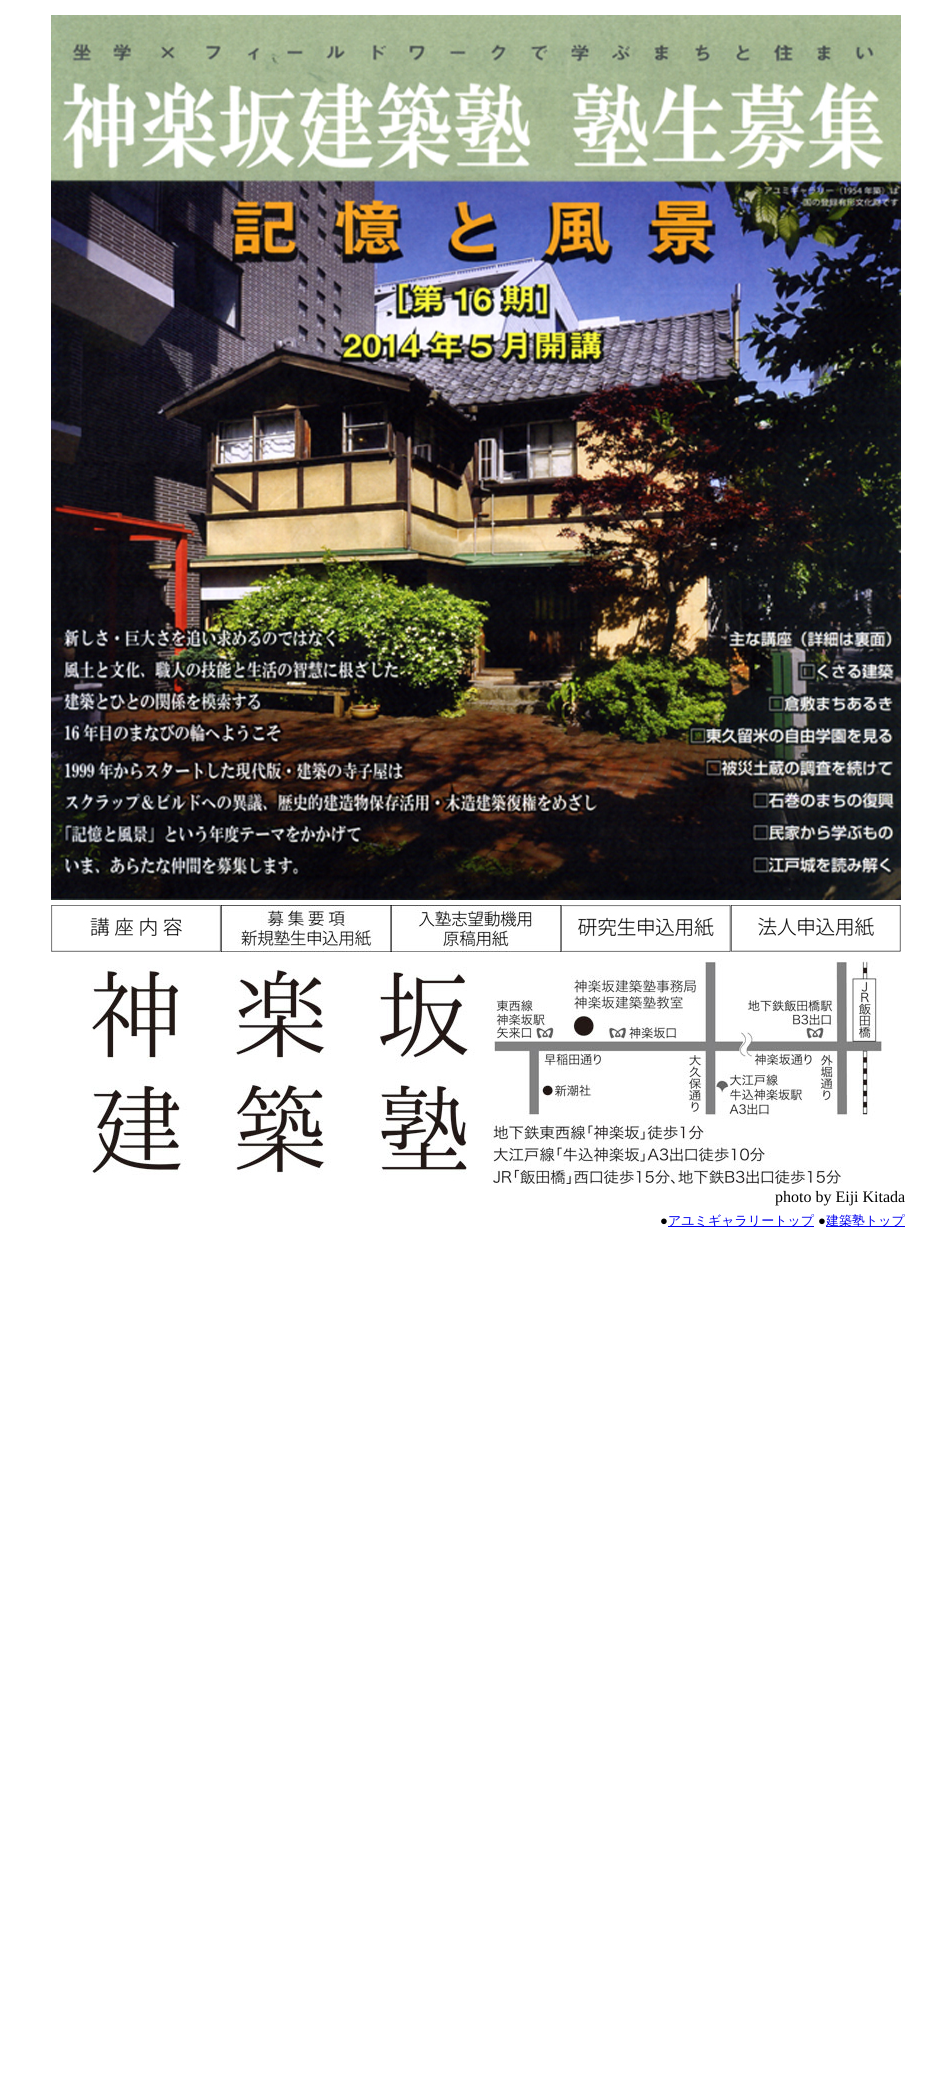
#include <cairo/cairo.h>
#include <math.h>
#include <stddef.h>

static cairo_t *cr;

static void rgb(unsigned color)
{
	cairo_set_source_rgb(cr, (color >> 16) / 255.0, (color >> 8 & 255) / 255.0, (color & 255) / 255.0);
}

static void image(const char *path, double x, double y, double w, double h)
{
	cairo_surface_t *image = cairo_image_surface_create_from_png(path);
	cairo_save(cr);
	cairo_set_source_surface(cr, image, x, y);
	cairo_rectangle(cr, x, y, w, h);
	cairo_fill(cr);
	cairo_restore(cr);
	cairo_surface_destroy(image);
}

int main(void) {
	cairo_surface_t *surface = cairo_image_surface_create(CAIRO_FORMAT_RGB24, 952, 2093);
	cr = cairo_create(surface);
	cairo_font_options_t *options = cairo_font_options_create();
	cairo_font_options_set_hint_metrics(options, CAIRO_HINT_METRICS_OFF);
	cairo_font_options_set_hint_style(options, CAIRO_HINT_STYLE_NONE);
	cairo_set_font_options(cr, options);
	cairo_set_miter_limit(cr, 4);
	rgb(0xffffff);
	cairo_paint(cr);
	image("img/1.png", 51, 15, 850, 885);
	image("img/2.png", 51, 905, 170, 47);
	image("img/3.png", 221, 905, 170, 47);
	image("img/4.png", 391, 905, 170, 47);
	image("img/5.png", 561, 905, 170, 47);
	image("img/6.png", 731, 905, 170, 47);
	image("img/7.png", 91, 959, 791, 225);
	rgb(0x0000ee);
	cairo_rectangle(cr, 668, 1226, 146, 1);
	cairo_fill(cr);
	cairo_rectangle(cr, 826, 1226, 79, 1);
	cairo_fill(cr);
	cairo_select_font_face(cr, "Liberation Serif", CAIRO_FONT_SLANT_NORMAL, CAIRO_FONT_WEIGHT_NORMAL);
	cairo_set_font_size(cr, 16);
	rgb(0x000000);
	cairo_move_to(cr, 775, 1202);
	cairo_show_text(cr, "photo by Eiji Kitada");
	cairo_set_font_size(cr, 13);
	cairo_move_to(cr, 660, 1225);
	cairo_show_text(cr, "●");
	cairo_select_font_face(cr, "WenQuanYi Zen Hei Medium", CAIRO_FONT_SLANT_NORMAL, CAIRO_FONT_WEIGHT_NORMAL);
	rgb(0x0000ee);
	cairo_move_to(cr, 668, 1225);
	cairo_show_text(cr, "アユミギャラリートップ");
	cairo_select_font_face(cr, "Liberation Serif", CAIRO_FONT_SLANT_NORMAL, CAIRO_FONT_WEIGHT_NORMAL);
	rgb(0x000000);
	cairo_move_to(cr, 818, 1225);
	cairo_show_text(cr, "●");
	cairo_select_font_face(cr, "WenQuanYi Zen Hei Medium", CAIRO_FONT_SLANT_NORMAL, CAIRO_FONT_WEIGHT_NORMAL);
	rgb(0x0000ee);
	cairo_move_to(cr, 826, 1225);
	cairo_show_text(cr, "建築塾トップ");
	cairo_surface_write_to_png(surface, "page.png");
	cairo_font_options_destroy(options);
	cairo_destroy(cr);
	cairo_surface_destroy(surface);
	return 0;
}
